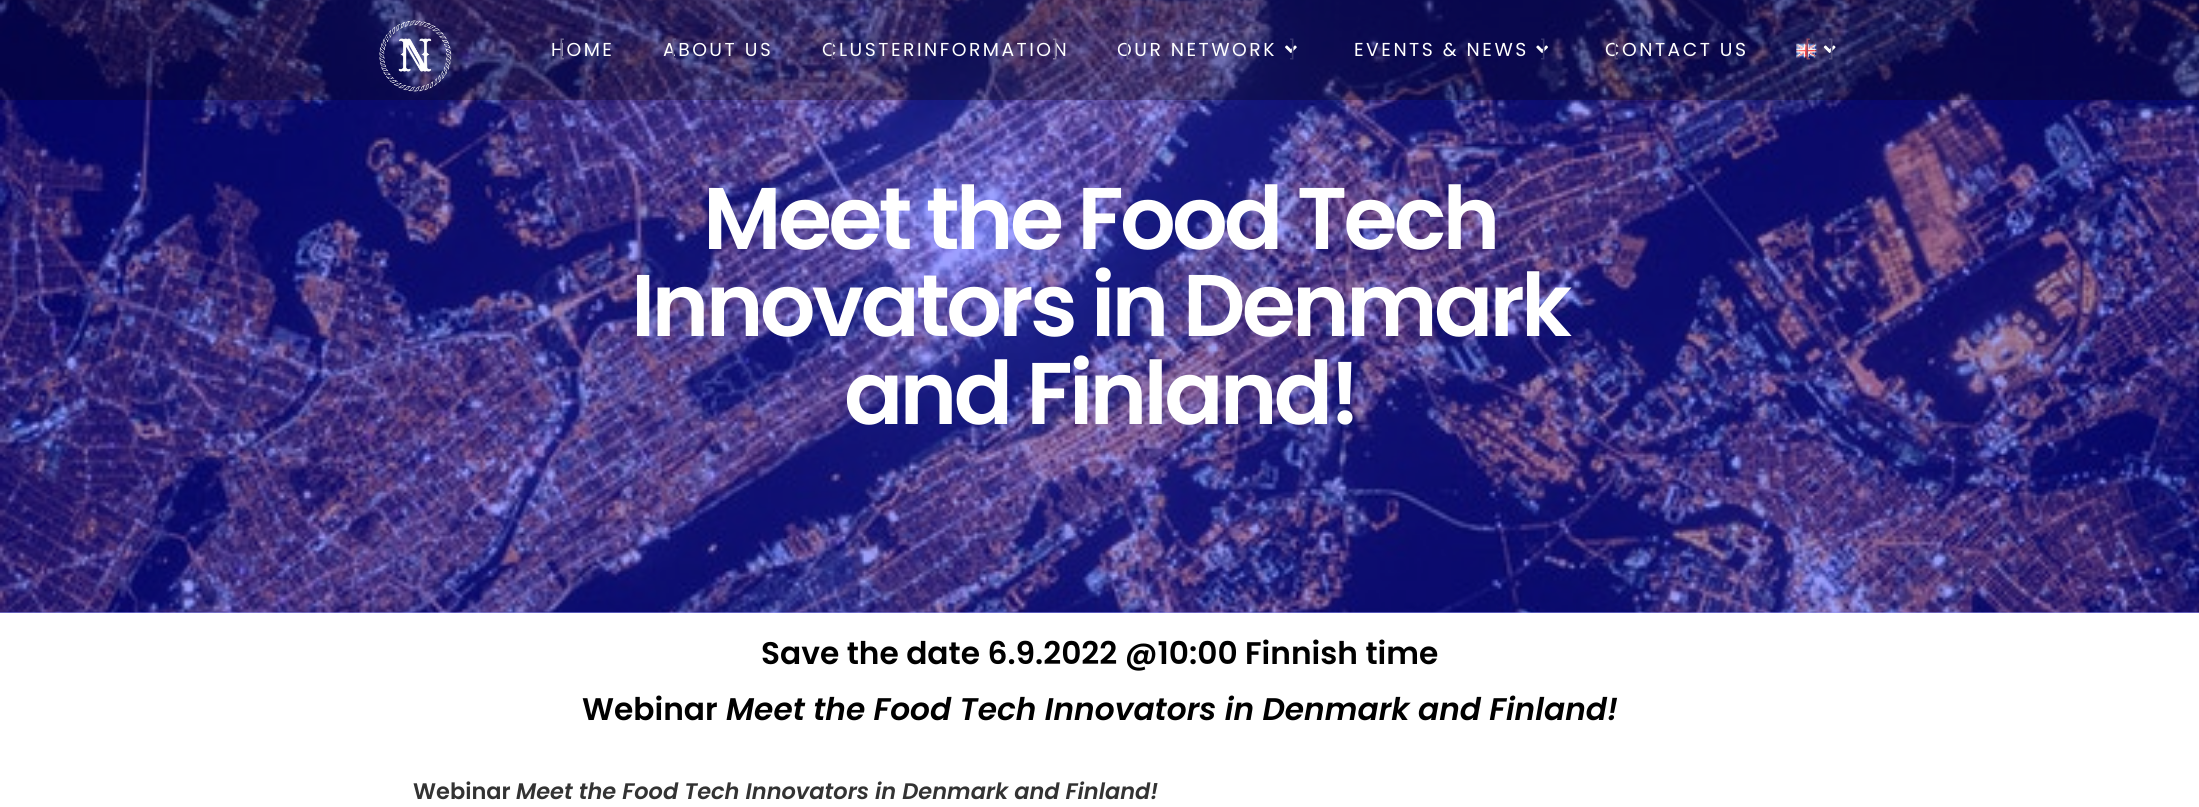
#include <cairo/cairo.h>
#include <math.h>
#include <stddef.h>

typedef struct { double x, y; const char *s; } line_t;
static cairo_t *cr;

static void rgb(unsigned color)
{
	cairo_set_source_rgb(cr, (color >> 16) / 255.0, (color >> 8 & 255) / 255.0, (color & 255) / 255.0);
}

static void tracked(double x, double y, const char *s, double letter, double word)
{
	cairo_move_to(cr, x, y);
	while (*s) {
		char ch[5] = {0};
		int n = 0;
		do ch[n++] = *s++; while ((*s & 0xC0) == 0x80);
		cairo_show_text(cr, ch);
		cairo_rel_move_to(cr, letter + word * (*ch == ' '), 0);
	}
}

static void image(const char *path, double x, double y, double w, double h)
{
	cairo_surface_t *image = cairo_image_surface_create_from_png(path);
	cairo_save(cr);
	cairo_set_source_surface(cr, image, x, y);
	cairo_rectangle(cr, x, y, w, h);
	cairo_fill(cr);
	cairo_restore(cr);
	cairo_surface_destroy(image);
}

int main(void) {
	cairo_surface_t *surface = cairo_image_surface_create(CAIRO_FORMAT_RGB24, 2199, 807);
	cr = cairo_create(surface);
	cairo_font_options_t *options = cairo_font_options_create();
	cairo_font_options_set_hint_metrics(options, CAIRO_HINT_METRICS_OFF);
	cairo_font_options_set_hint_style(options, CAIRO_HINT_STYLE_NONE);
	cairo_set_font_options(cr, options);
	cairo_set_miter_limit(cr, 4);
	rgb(0xffffff);
	cairo_paint(cr);
	rgb(0x9ea0ff);
	cairo_rectangle(cr, 0, 612, 2199, 1);
	cairo_fill(cr);
	image("img/6.png", 0, 0, 2199, 613);
	cairo_set_source_rgba(cr, 0.039, 0, 0, 0.3);
	cairo_rectangle(cr, 0, 0, 2199, 100);
	cairo_fill(cr);
	image("img/1.png", 379, 20, 73, 72);
	image("img/2.png", 1285, 45, 12, 8);
	image("img/3.png", 1536, 45, 12, 8);
	image("img/4.png", 1796, 43, 21, 15);
	image("img/5.png", 1823, 45, 13, 8);
	cairo_select_font_face(cr, "Poppins", CAIRO_FONT_SLANT_NORMAL, CAIRO_FONT_WEIGHT_NORMAL);
	cairo_set_font_size(cr, 18.75);
	rgb(0xffffff);
	tracked(551, 56, "HOME", 2.5, 0);
	rgb(0x726c94);
	tracked(558, 56, "[", 2.5, 0);
	rgb(0xffffff);
	tracked(663, 56, "ABOUT US", 2.5, 0);
	rgb(0x3c346e);
	tracked(756, 56, "]", 2.5, 0);
	rgb(0x635b8b);
	tracked(670, 56, "[", 2.5, 0);
	rgb(0xffffff);
	tracked(822, 56, "CLUSTERINFORMATION", 2.5, 0);
	rgb(0x8b81a3);
	tracked(1051, 56, "]", 2.5, 0);
	rgb(0x635584);
	tracked(829, 56, "[", 2.5, 0);
	rgb(0x36356f);
	tracked(1288, 56, "]", 2.5, 0);
	rgb(0xffffff);
	tracked(1117, 56, "OUR NETWORK", 2.5, 0);
	rgb(0x635b8b);
	tracked(1124, 56, "[", 2.5, 0);
	rgb(0xffffff);
	tracked(1354, 56, "EVENTS & NEWS", 2.5, 0);
	rgb(0x36356f);
	tracked(1539, 56, "]", 2.5, 0);
	rgb(0xffffff);
	tracked(1605, 56, "CONTACT US", 2.5, 0);
	rgb(0x554772);
	tracked(1612, 56, "[", 2.5, 0);
	rgb(0x934d69);
	tracked(1804, 56, "[", 2.5, 0);
	rgb(0x54507f);
	tracked(1827, 56, "]", 2.5, 0);
	cairo_select_font_face(cr, "Poppins SemiBold", CAIRO_FONT_SLANT_NORMAL, CAIRO_FONT_WEIGHT_NORMAL);
	cairo_set_font_size(cr, 87.5);
	rgb(0xffffff);
	{
		static const line_t items[] = {
			{703, 249, "Meet the Food Tech"},
			{631, 336, "Innovators in Denmark"},
			{844, 424, "and Finland!"},
		};
		for (size_t i = 0; i < sizeof items / sizeof *items; i++) {
			tracked(items[i].x, items[i].y, items[i].s, -3.75, 0);
		}
	}
	cairo_set_font_size(cr, 31.25);
	rgb(0x000000);
	cairo_move_to(cr, 761, 664);
	cairo_show_text(cr, "Save the date 6.9.2022 @10:00 Finnish time");
	cairo_move_to(cr, 582, 720);
	cairo_show_text(cr, "Webinar");
	cairo_select_font_face(cr, "Poppins SemiBold", CAIRO_FONT_SLANT_ITALIC, CAIRO_FONT_WEIGHT_NORMAL);
	cairo_move_to(cr, 726, 720);
	cairo_show_text(cr, "Meet the Food Tech Innovators in Denmark and Finland!");
	cairo_select_font_face(cr, "Poppins SemiBold", CAIRO_FONT_SLANT_NORMAL, CAIRO_FONT_WEIGHT_NORMAL);
	cairo_set_font_size(cr, 22.5);
	rgb(0x333333);
	cairo_move_to(cr, 413, 799);
	cairo_show_text(cr, "Webinar");
	cairo_select_font_face(cr, "Poppins SemiBold", CAIRO_FONT_SLANT_ITALIC, CAIRO_FONT_WEIGHT_NORMAL);
	cairo_move_to(cr, 516, 799);
	cairo_show_text(cr, "Meet the Food Tech Innovators in Denmark and Finland!");
	cairo_surface_write_to_png(surface, "page.png");
	cairo_font_options_destroy(options);
	cairo_destroy(cr);
	cairo_surface_destroy(surface);
	return 0;
}
